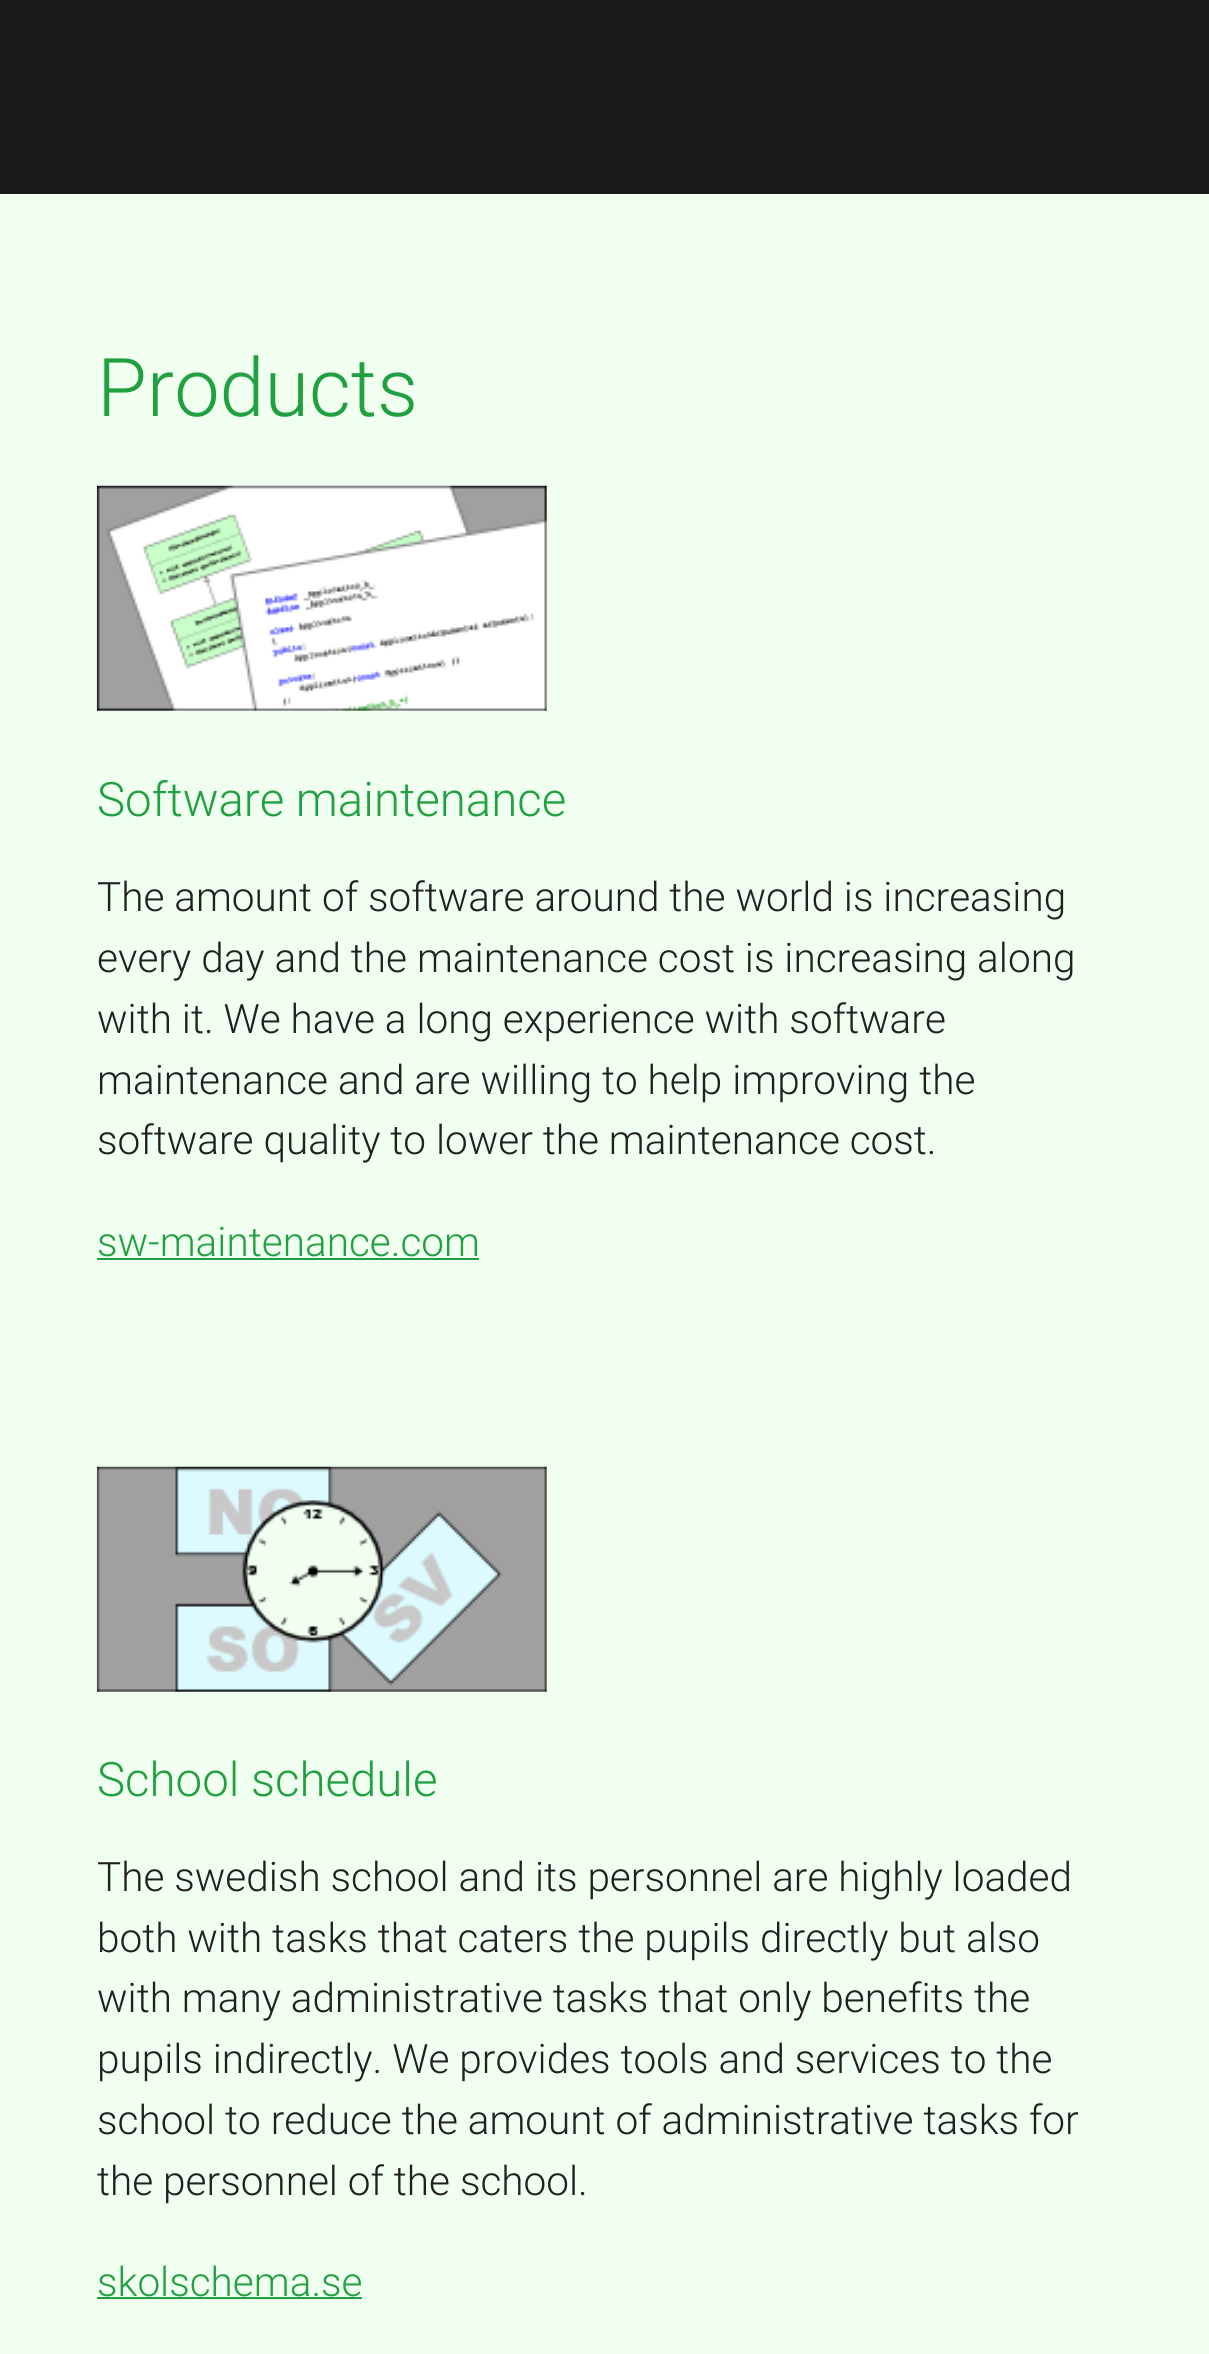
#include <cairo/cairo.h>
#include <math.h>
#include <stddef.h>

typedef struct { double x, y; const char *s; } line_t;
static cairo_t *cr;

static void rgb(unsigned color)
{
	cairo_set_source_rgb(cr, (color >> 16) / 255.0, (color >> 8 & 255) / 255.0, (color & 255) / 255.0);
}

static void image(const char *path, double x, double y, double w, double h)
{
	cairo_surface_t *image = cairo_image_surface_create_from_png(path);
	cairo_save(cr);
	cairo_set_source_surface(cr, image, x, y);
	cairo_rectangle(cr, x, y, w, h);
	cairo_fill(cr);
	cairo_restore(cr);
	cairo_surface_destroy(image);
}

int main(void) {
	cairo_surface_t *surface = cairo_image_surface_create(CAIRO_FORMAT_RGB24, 1209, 2354);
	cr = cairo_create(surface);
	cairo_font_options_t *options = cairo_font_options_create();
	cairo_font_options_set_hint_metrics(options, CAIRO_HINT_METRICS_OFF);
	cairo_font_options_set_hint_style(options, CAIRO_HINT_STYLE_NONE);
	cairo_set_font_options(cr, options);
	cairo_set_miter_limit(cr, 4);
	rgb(0x1a1a1a);
	cairo_paint(cr);
	rgb(0xf0fff0);
	cairo_rectangle(cr, 0, 194, 1209, 2160);
	cairo_fill(cr);
	image("img/1.png", 96, 485, 451, 226);
	rgb(0x20a040);
	cairo_rectangle(cr, 97, 1258, 382, 2);
	cairo_fill(cr);
	image("img/2.png", 96, 1466, 451, 226);
	cairo_rectangle(cr, 97, 2297, 265, 2);
	cairo_fill(cr);
	cairo_select_font_face(cr, "Roboto Light", CAIRO_FONT_SLANT_NORMAL, CAIRO_FONT_WEIGHT_NORMAL);
	cairo_set_font_size(cr, 81);
	cairo_move_to(cr, 97, 416);
	cairo_show_text(cr, "Products");
	cairo_set_font_size(cr, 47.4);
	cairo_move_to(cr, 97, 816);
	cairo_show_text(cr, "Software maintenance");
	cairo_set_font_size(cr, 40.5);
	rgb(0x202020);
	{
		static const line_t items[] = {
			{97, 911, "The amount of software around the world is increasing"},
			{97, 972, "every day and the maintenance cost is increasing along"},
			{97, 1033, "with it. We have a long experience with software"},
			{97, 1094, "maintenance and are willing to help improving the"},
			{97, 1154, "software quality to lower the maintenance cost."},
		};
		for (size_t i = 0; i < sizeof items / sizeof *items; i++) {
			cairo_move_to(cr, items[i].x, items[i].y);
			cairo_show_text(cr, items[i].s);
		}
	}
	rgb(0x20a040);
	cairo_move_to(cr, 97, 1256);
	cairo_show_text(cr, "sw-maintenance.com");
	cairo_set_font_size(cr, 47.4);
	cairo_move_to(cr, 97, 1796);
	cairo_show_text(cr, "School schedule");
	cairo_set_font_size(cr, 40.5);
	rgb(0x202020);
	{
		static const line_t items[] = {
			{97, 1891, "The swedish school and its personnel are highly loaded"},
			{97, 1952, "both with tasks that caters the pupils directly but also"},
			{97, 2012, "with many administrative tasks that only benefits the"},
			{97, 2073, "pupils indirectly. We provides tools and services to the"},
			{97, 2134, "school to reduce the amount of administrative tasks for"},
			{97, 2195, "the personnel of the school."},
		};
		for (size_t i = 0; i < sizeof items / sizeof *items; i++) {
			cairo_move_to(cr, items[i].x, items[i].y);
			cairo_show_text(cr, items[i].s);
		}
	}
	rgb(0x20a040);
	cairo_move_to(cr, 97, 2296);
	cairo_show_text(cr, "skolschema.se");
	cairo_surface_write_to_png(surface, "page.png");
	cairo_font_options_destroy(options);
	cairo_destroy(cr);
	cairo_surface_destroy(surface);
	return 0;
}
